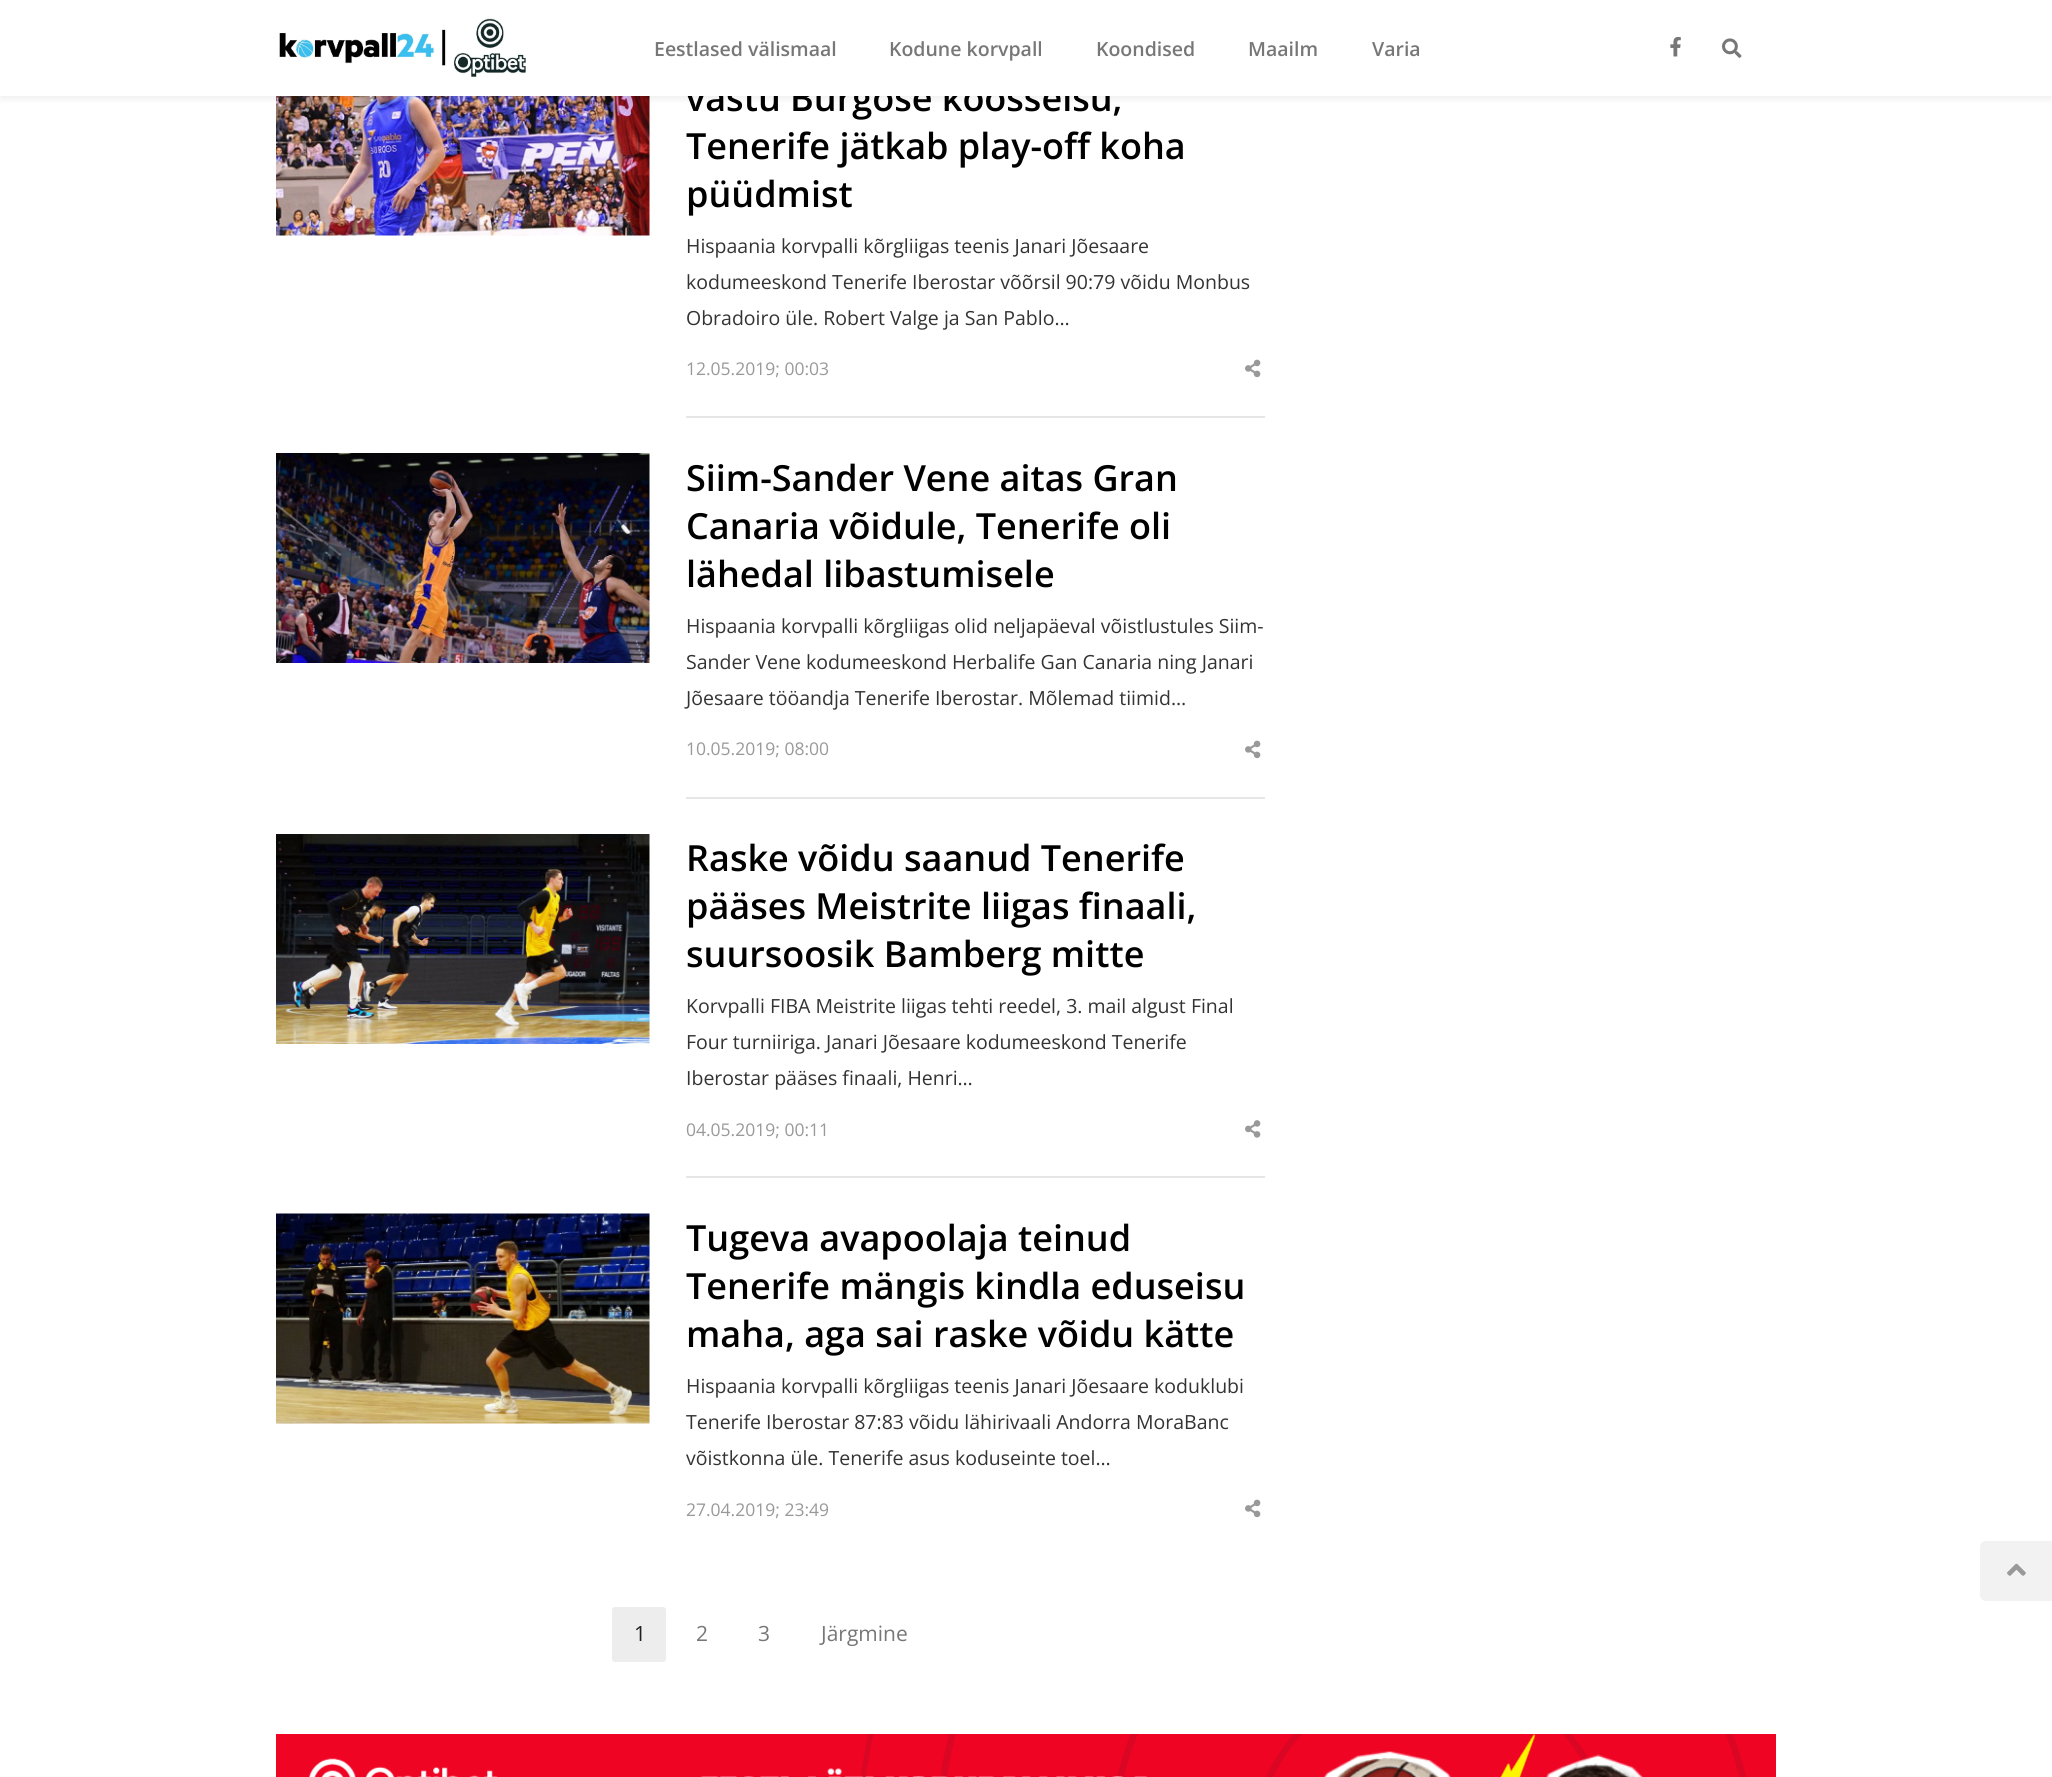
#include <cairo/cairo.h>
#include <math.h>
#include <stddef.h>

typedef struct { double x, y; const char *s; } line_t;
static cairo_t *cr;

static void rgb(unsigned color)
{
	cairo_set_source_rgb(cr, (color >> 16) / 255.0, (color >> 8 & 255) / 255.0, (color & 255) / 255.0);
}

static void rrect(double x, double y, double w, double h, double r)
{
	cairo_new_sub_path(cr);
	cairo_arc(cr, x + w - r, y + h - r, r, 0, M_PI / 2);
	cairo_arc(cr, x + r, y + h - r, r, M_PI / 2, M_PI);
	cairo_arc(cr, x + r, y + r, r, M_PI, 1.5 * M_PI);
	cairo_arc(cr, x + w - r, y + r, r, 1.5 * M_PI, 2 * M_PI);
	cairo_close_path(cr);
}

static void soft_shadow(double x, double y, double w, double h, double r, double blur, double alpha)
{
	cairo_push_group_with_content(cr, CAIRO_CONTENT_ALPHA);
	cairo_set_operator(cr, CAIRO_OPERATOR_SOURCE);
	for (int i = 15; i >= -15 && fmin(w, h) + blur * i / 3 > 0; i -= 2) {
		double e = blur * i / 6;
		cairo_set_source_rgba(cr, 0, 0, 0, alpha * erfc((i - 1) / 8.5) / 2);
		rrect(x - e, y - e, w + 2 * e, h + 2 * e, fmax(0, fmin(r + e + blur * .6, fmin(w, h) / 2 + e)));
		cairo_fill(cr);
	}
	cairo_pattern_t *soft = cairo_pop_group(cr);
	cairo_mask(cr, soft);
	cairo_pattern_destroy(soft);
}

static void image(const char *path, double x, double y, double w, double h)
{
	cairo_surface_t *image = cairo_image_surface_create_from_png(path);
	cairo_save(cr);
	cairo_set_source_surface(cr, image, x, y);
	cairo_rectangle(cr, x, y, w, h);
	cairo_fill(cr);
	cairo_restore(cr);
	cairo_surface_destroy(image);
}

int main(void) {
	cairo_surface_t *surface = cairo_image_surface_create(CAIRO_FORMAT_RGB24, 2052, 1777);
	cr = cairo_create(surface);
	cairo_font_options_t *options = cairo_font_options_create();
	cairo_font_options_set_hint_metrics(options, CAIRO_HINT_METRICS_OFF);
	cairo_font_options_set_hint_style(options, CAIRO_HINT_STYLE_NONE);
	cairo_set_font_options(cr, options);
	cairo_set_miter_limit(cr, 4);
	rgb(0xffffff);
	cairo_paint(cr);
	image("img/4.png", 276, 96, 374, 140);
	rgb(0x000000);
	soft_shadow(0, 3, 2052, 96, 0, 4, 0.07);
	image("img/5.png", 1245, 359, 16, 19);
	rgb(0xe6e6e6);
	cairo_rectangle(cr, 686, 416, 579, 2);
	cairo_fill(cr);
	image("img/6.png", 276, 453, 374, 210);
	image("img/5.png", 1245, 740, 16, 19);
	cairo_rectangle(cr, 686, 797, 579, 2);
	cairo_fill(cr);
	image("img/7.png", 276, 834, 374, 210);
	image("img/8.png", 1245, 1120, 16, 18);
	cairo_rectangle(cr, 686, 1176, 579, 2);
	cairo_fill(cr);
	image("img/9.png", 276, 1213, 374, 211);
	image("img/5.png", 1245, 1499, 16, 19);
	rgb(0xededed);
	rrect(612, 1607, 54, 55, 3);
	cairo_fill(cr);
	image("img/10.png", 276, 1734, 1500, 43);
	rgb(0xf2f2f2);
	cairo_new_path(cr);
	cairo_move_to(cr, 1986, 1541);
	cairo_line_to(cr, 2052, 1541);
	cairo_line_to(cr, 2052, 1601);
	cairo_line_to(cr, 1986, 1601);
	cairo_curve_to(cr, 1982.5, 1601, 1980, 1598.5, 1980, 1595);
	cairo_line_to(cr, 1980, 1547);
	cairo_curve_to(cr, 1980, 1543.5, 1982.5, 1541, 1986, 1541);
	cairo_close_path(cr);
	cairo_fill(cr);
	image("img/11.png", 2007, 1563, 19, 13);
	cairo_select_font_face(cr, "Open Sans SemiBold", CAIRO_FONT_SLANT_NORMAL, CAIRO_FONT_WEIGHT_NORMAL);
	cairo_set_font_size(cr, 36);
	rgb(0x000000);
	cairo_move_to(cr, 686, 111);
	cairo_show_text(cr, "vastu Burgose koosseisu,");
	rgb(0xffffff);
	cairo_rectangle(cr, 0, 0, 2052, 96);
	cairo_fill(cr);
	image("img/3.png", 1722, 38, 20, 20);
	cairo_set_font_size(cr, 19.5);
	rgb(0x777777);
	{
		static const line_t items[] = {
			{1372, 56, "Varia"},
			{1248, 56, "Maailm"},
			{1096, 56, "Koondised"},
			{889, 56, "Kodune korvpall"},
			{654, 56, "Eestlased välismaal"},
		};
		for (size_t i = 0; i < sizeof items / sizeof *items; i++) {
			cairo_move_to(cr, items[i].x, items[i].y);
			cairo_show_text(cr, items[i].s);
		}
	}
	image("img/2.png", 1670, 36, 11, 21);
	image("img/1.png", 279, 18, 247, 60);
	cairo_set_font_size(cr, 36);
	rgb(0x000000);
	cairo_move_to(cr, 686, 159);
	cairo_show_text(cr, "Tenerife jätkab play-off koha");
	cairo_move_to(cr, 686, 207);
	cairo_show_text(cr, "püüdmist");
	cairo_select_font_face(cr, "Open Sans", CAIRO_FONT_SLANT_NORMAL, CAIRO_FONT_WEIGHT_NORMAL);
	cairo_set_font_size(cr, 19.5);
	rgb(0x333333);
	{
		static const line_t items[] = {
			{686, 253, "Hispaania korvpalli kõrgliigas teenis Janari Jõesaare"},
			{686, 289, "kodumeeskond Tenerife Iberostar võõrsil 90:79 võidu Monbus"},
			{686, 325, "Obradoiro üle. Robert Valge ja San Pablo…"},
		};
		for (size_t i = 0; i < sizeof items / sizeof *items; i++) {
			cairo_move_to(cr, items[i].x, items[i].y);
			cairo_show_text(cr, items[i].s);
		}
	}
	cairo_set_font_size(cr, 17.5);
	rgb(0x999999);
	cairo_move_to(cr, 686, 375);
	cairo_show_text(cr, "12.05.2019; 00:03");
	cairo_select_font_face(cr, "Open Sans SemiBold", CAIRO_FONT_SLANT_NORMAL, CAIRO_FONT_WEIGHT_NORMAL);
	cairo_set_font_size(cr, 36);
	rgb(0x000000);
	{
		static const line_t items[] = {
			{686, 491, "Siim-Sander Vene aitas Gran"},
			{686, 539, "Canaria võidule, Tenerife oli"},
			{686, 587, "lähedal libastumisele"},
		};
		for (size_t i = 0; i < sizeof items / sizeof *items; i++) {
			cairo_move_to(cr, items[i].x, items[i].y);
			cairo_show_text(cr, items[i].s);
		}
	}
	cairo_select_font_face(cr, "Open Sans", CAIRO_FONT_SLANT_NORMAL, CAIRO_FONT_WEIGHT_NORMAL);
	cairo_set_font_size(cr, 19.5);
	rgb(0x333333);
	{
		static const line_t items[] = {
			{686, 633, "Hispaania korvpalli kõrgliigas olid neljapäeval võistlustules Siim-"},
			{686, 669, "Sander Vene kodumeeskond Herbalife Gan Canaria ning Janari"},
			{686, 705, "Jõesaare tööandja Tenerife Iberostar. Mõlemad tiimid…"},
		};
		for (size_t i = 0; i < sizeof items / sizeof *items; i++) {
			cairo_move_to(cr, items[i].x, items[i].y);
			cairo_show_text(cr, items[i].s);
		}
	}
	cairo_set_font_size(cr, 17.5);
	rgb(0x999999);
	cairo_move_to(cr, 686, 755);
	cairo_show_text(cr, "10.05.2019; 08:00");
	cairo_select_font_face(cr, "Open Sans SemiBold", CAIRO_FONT_SLANT_NORMAL, CAIRO_FONT_WEIGHT_NORMAL);
	cairo_set_font_size(cr, 36);
	rgb(0x000000);
	{
		static const line_t items[] = {
			{686, 871, "Raske võidu saanud Tenerife"},
			{686, 919, "pääses Meistrite liigas finaali,"},
			{686, 967, "suursoosik Bamberg mitte"},
		};
		for (size_t i = 0; i < sizeof items / sizeof *items; i++) {
			cairo_move_to(cr, items[i].x, items[i].y);
			cairo_show_text(cr, items[i].s);
		}
	}
	cairo_select_font_face(cr, "Open Sans", CAIRO_FONT_SLANT_NORMAL, CAIRO_FONT_WEIGHT_NORMAL);
	cairo_set_font_size(cr, 19.5);
	rgb(0x333333);
	{
		static const line_t items[] = {
			{686, 1013, "Korvpalli FIBA Meistrite liigas tehti reedel, 3. mail algust Final"},
			{686, 1049, "Four turniiriga. Janari Jõesaare kodumeeskond Tenerife"},
			{686, 1085, "Iberostar pääses finaali, Henri…"},
		};
		for (size_t i = 0; i < sizeof items / sizeof *items; i++) {
			cairo_move_to(cr, items[i].x, items[i].y);
			cairo_show_text(cr, items[i].s);
		}
	}
	cairo_set_font_size(cr, 17.5);
	rgb(0x999999);
	cairo_move_to(cr, 686, 1136);
	cairo_show_text(cr, "04.05.2019; 00:11");
	cairo_select_font_face(cr, "Open Sans SemiBold", CAIRO_FONT_SLANT_NORMAL, CAIRO_FONT_WEIGHT_NORMAL);
	cairo_set_font_size(cr, 36);
	rgb(0x000000);
	{
		static const line_t items[] = {
			{686, 1251, "Tugeva avapoolaja teinud"},
			{686, 1299, "Tenerife mängis kindla eduseisu"},
			{686, 1347, "maha, aga sai raske võidu kätte"},
		};
		for (size_t i = 0; i < sizeof items / sizeof *items; i++) {
			cairo_move_to(cr, items[i].x, items[i].y);
			cairo_show_text(cr, items[i].s);
		}
	}
	cairo_select_font_face(cr, "Open Sans", CAIRO_FONT_SLANT_NORMAL, CAIRO_FONT_WEIGHT_NORMAL);
	cairo_set_font_size(cr, 19.5);
	rgb(0x333333);
	{
		static const line_t items[] = {
			{686, 1393, "Hispaania korvpalli kõrgliigas teenis Janari Jõesaare koduklubi"},
			{686, 1429, "Tenerife Iberostar 87:83 võidu lähirivaali Andorra MoraBanc"},
			{686, 1465, "võistkonna üle. Tenerife asus koduseinte toel…"},
		};
		for (size_t i = 0; i < sizeof items / sizeof *items; i++) {
			cairo_move_to(cr, items[i].x, items[i].y);
			cairo_show_text(cr, items[i].s);
		}
	}
	cairo_set_font_size(cr, 17.5);
	rgb(0x999999);
	cairo_move_to(cr, 686, 1516);
	cairo_show_text(cr, "27.04.2019; 23:49");
	cairo_set_font_size(cr, 21);
	rgb(0x212121);
	cairo_move_to(cr, 634, 1641);
	cairo_show_text(cr, "1");
	rgb(0x777777);
	{
		static const line_t items[] = {
			{696, 1641, "2"},
			{758, 1641, "3"},
			{821, 1641, "Järgmine"},
		};
		for (size_t i = 0; i < sizeof items / sizeof *items; i++) {
			cairo_move_to(cr, items[i].x, items[i].y);
			cairo_show_text(cr, items[i].s);
		}
	}
	cairo_surface_write_to_png(surface, "page.png");
	cairo_font_options_destroy(options);
	cairo_destroy(cr);
	cairo_surface_destroy(surface);
	return 0;
}
